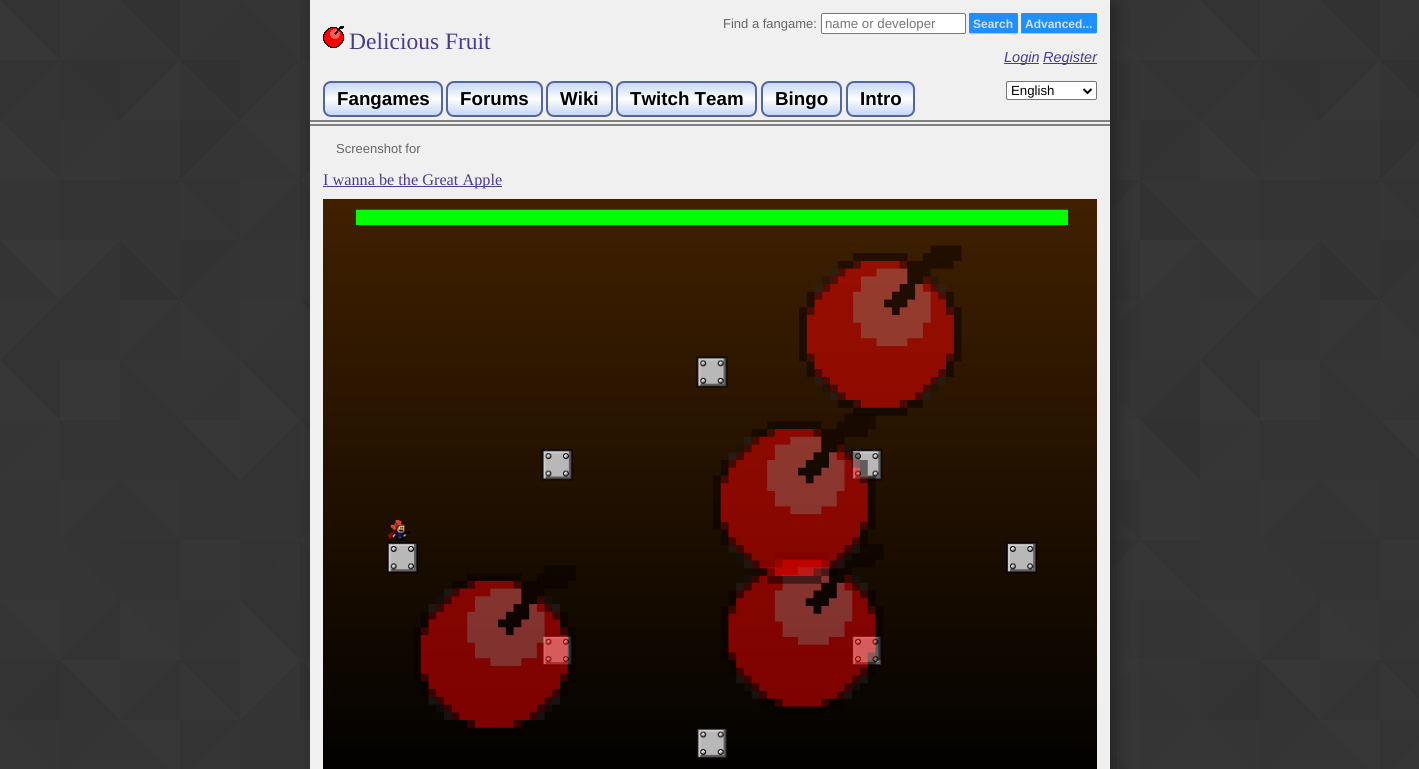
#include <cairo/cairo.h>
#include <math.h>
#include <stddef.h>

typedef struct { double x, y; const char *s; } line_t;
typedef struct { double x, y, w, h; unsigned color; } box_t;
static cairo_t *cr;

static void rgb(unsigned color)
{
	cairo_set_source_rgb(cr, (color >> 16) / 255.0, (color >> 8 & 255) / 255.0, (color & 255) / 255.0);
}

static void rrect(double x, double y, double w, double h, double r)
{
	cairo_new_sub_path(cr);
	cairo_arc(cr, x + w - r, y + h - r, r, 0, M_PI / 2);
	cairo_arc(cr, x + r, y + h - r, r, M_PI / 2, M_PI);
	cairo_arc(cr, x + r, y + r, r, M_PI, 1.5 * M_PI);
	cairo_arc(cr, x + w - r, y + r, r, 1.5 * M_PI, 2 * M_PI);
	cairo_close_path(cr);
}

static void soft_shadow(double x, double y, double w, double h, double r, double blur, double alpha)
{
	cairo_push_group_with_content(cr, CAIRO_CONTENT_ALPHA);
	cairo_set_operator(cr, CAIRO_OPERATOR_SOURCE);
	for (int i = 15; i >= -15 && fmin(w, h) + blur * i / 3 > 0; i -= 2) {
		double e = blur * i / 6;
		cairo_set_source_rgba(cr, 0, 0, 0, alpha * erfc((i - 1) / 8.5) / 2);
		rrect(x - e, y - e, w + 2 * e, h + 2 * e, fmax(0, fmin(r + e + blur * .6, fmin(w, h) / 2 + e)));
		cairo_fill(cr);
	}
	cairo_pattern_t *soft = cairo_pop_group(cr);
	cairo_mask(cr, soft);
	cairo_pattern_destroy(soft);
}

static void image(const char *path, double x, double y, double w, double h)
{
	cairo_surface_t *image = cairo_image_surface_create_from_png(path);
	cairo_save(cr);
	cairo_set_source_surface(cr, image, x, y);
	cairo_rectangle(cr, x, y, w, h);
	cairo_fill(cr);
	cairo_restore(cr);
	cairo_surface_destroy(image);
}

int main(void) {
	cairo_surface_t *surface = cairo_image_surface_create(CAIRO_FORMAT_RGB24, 1419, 769);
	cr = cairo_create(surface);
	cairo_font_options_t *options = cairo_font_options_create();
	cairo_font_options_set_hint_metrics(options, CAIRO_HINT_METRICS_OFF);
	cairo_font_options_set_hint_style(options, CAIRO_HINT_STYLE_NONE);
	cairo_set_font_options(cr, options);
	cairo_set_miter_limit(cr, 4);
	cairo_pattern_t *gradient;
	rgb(0xffffff);
	cairo_paint(cr);
	image("img/1.png", 0, 0, 1419, 769);
	rgb(0x222222);
	soft_shadow(315, 5, 800, 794, 0, 10, 1);
	{
		static const box_t items[] = {
			{310, 0, 800, 769, 0xf0f0f0},
			{310, 120, 800, 2, 0x808080},
			{310, 124, 800, 2, 0x808080},
		};
		for (size_t i = 0; i < sizeof items / sizeof *items; i++) {
			rgb(items[i].color);
			cairo_rectangle(cr, items[i].x, items[i].y, items[i].w, items[i].h);
			cairo_fill(cr);
		}
	}
	image("img/2.png", 323, 26, 21, 22);
	rgb(0xffffff);
	rrect(821.5, 13.5, 144, 20, 1.5);
	cairo_fill_preserve(cr);
	rgb(0x767676);
	cairo_set_line_width(cr, 1);
	cairo_stroke(cr);
	rgb(0xc0c0c0);
	cairo_new_path(cr);
	cairo_move_to(cr, 969, 32);
	cairo_curve_to(cr, 969, 36, 974, 34, 978, 34);
	cairo_line_to(cr, 1009, 34);
	cairo_curve_to(cr, 1013, 34, 1018, 36, 1018, 32);
	cairo_line_to(cr, 1017, 33);
	cairo_line_to(cr, 969, 33);
	cairo_close_path(cr);
	cairo_fill(cr);
	rgb(0x1e90ff);
	rrect(969, 13, 49, 20, 1);
	cairo_fill(cr);
	rgb(0xc0c0c0);
	cairo_new_path(cr);
	cairo_move_to(cr, 1021, 32);
	cairo_curve_to(cr, 1021, 33, 1021, 34, 1022, 34);
	cairo_line_to(cr, 1096, 34);
	cairo_line_to(cr, 1097, 32);
	cairo_line_to(cr, 1096, 33);
	cairo_line_to(cr, 1022, 33);
	cairo_close_path(cr);
	cairo_fill(cr);
	rgb(0x1e90ff);
	rrect(1021, 13, 76, 20, 1);
	cairo_fill(cr);
	rgb(0x483d8b);
	cairo_rectangle(cr, 1004, 63, 35, 1);
	cairo_fill(cr);
	cairo_rectangle(cr, 1043, 63, 54, 1);
	cairo_fill(cr);
	cairo_save(cr);
	rrect(323, 81, 120, 36, 8);
	cairo_clip(cr);
	gradient = cairo_pattern_create_linear(383, 83, 383, 115);
	cairo_pattern_add_color_stop_rgba(gradient, 0, 0.776, 0.843, 0.969, 1);
	cairo_pattern_add_color_stop_rgba(gradient, 0.5, 0.992, 0.992, 0.992, 1);
	cairo_pattern_add_color_stop_rgba(gradient, 1, 0.776, 0.843, 0.969, 1);
	cairo_set_source(cr, gradient);
	cairo_pattern_destroy(gradient);
	cairo_rectangle(cr, 323, 83, 120, 32);
	cairo_fill(cr);
	cairo_restore(cr);
	rrect(324, 82, 118, 34, 7);
	rgb(0x556699);
	cairo_set_line_width(cr, 2);
	cairo_stroke(cr);
	cairo_save(cr);
	rrect(446, 81, 97, 36, 8);
	cairo_clip(cr);
	gradient = cairo_pattern_create_linear(495, 83, 495, 115);
	cairo_pattern_add_color_stop_rgba(gradient, 0, 0.776, 0.843, 0.969, 1);
	cairo_pattern_add_color_stop_rgba(gradient, 0.5, 0.992, 0.992, 0.992, 1);
	cairo_pattern_add_color_stop_rgba(gradient, 1, 0.776, 0.843, 0.969, 1);
	cairo_set_source(cr, gradient);
	cairo_pattern_destroy(gradient);
	cairo_rectangle(cr, 446, 83, 97, 32);
	cairo_fill(cr);
	cairo_restore(cr);
	rrect(447, 82, 95, 34, 7);
	cairo_stroke(cr);
	cairo_save(cr);
	rrect(546, 81, 67, 36, 8);
	cairo_clip(cr);
	gradient = cairo_pattern_create_linear(580, 83, 580, 115);
	cairo_pattern_add_color_stop_rgba(gradient, 0, 0.776, 0.843, 0.969, 1);
	cairo_pattern_add_color_stop_rgba(gradient, 0.5, 0.992, 0.992, 0.992, 1);
	cairo_pattern_add_color_stop_rgba(gradient, 1, 0.776, 0.843, 0.969, 1);
	cairo_set_source(cr, gradient);
	cairo_pattern_destroy(gradient);
	cairo_rectangle(cr, 546, 83, 67, 32);
	cairo_fill(cr);
	cairo_restore(cr);
	rrect(547, 82, 65, 34, 7);
	cairo_stroke(cr);
	cairo_save(cr);
	rrect(616, 81, 141, 36, 8);
	cairo_clip(cr);
	gradient = cairo_pattern_create_linear(687, 83, 687, 115);
	cairo_pattern_add_color_stop_rgba(gradient, 0, 0.776, 0.843, 0.969, 1);
	cairo_pattern_add_color_stop_rgba(gradient, 0.5, 0.992, 0.992, 0.992, 1);
	cairo_pattern_add_color_stop_rgba(gradient, 1, 0.776, 0.843, 0.969, 1);
	cairo_set_source(cr, gradient);
	cairo_pattern_destroy(gradient);
	cairo_rectangle(cr, 616, 83, 141, 32);
	cairo_fill(cr);
	cairo_restore(cr);
	rrect(617, 82, 139, 34, 7);
	cairo_stroke(cr);
	cairo_save(cr);
	rrect(761, 81, 81, 36, 8);
	cairo_clip(cr);
	gradient = cairo_pattern_create_linear(802, 83, 802, 115);
	cairo_pattern_add_color_stop_rgba(gradient, 0, 0.776, 0.843, 0.969, 1);
	cairo_pattern_add_color_stop_rgba(gradient, 0.5, 0.992, 0.992, 0.992, 1);
	cairo_pattern_add_color_stop_rgba(gradient, 1, 0.776, 0.843, 0.969, 1);
	cairo_set_source(cr, gradient);
	cairo_pattern_destroy(gradient);
	cairo_rectangle(cr, 761, 83, 81, 32);
	cairo_fill(cr);
	cairo_restore(cr);
	rrect(762, 82, 79, 34, 7);
	cairo_stroke(cr);
	cairo_save(cr);
	rrect(846, 81, 69, 36, 8);
	cairo_clip(cr);
	gradient = cairo_pattern_create_linear(881, 83, 881, 115);
	cairo_pattern_add_color_stop_rgba(gradient, 0, 0.776, 0.843, 0.969, 1);
	cairo_pattern_add_color_stop_rgba(gradient, 0.5, 0.992, 0.992, 0.992, 1);
	cairo_pattern_add_color_stop_rgba(gradient, 1, 0.776, 0.843, 0.969, 1);
	cairo_set_source(cr, gradient);
	cairo_pattern_destroy(gradient);
	cairo_rectangle(cr, 846, 83, 69, 32);
	cairo_fill(cr);
	cairo_restore(cr);
	rrect(847, 82, 67, 34, 7);
	cairo_stroke(cr);
	rgb(0xffffff);
	rrect(1006.5, 81.5, 90, 18, 1.5);
	cairo_fill_preserve(cr);
	rgb(0x767676);
	cairo_set_line_width(cr, 1);
	cairo_stroke(cr);
	cairo_new_path(cr);
	cairo_move_to(cr, 1083.5, 89);
	cairo_line_to(cr, 1087.5, 93);
	cairo_line_to(cr, 1091.5, 89);
	rgb(0x000000);
	cairo_set_line_width(cr, 2);
	cairo_stroke(cr);
	rgb(0x483d8b);
	cairo_rectangle(cr, 323, 186, 179, 1);
	cairo_fill(cr);
	image("img/3.png", 323, 199, 774, 570);
	cairo_select_font_face(cr, "Liberation Serif", CAIRO_FONT_SLANT_NORMAL, CAIRO_FONT_WEIGHT_NORMAL);
	cairo_set_font_size(cr, 23.5);
	cairo_move_to(cr, 349, 49);
	cairo_show_text(cr, "Delicious Fruit");
	cairo_select_font_face(cr, "Liberation Sans", CAIRO_FONT_SLANT_NORMAL, CAIRO_FONT_WEIGHT_NORMAL);
	cairo_set_font_size(cr, 13);
	rgb(0x666666);
	cairo_move_to(cr, 723, 28);
	cairo_show_text(cr, "Find a fangame:");
	cairo_set_font_size(cr, 13.25);
	rgb(0x757575);
	cairo_move_to(cr, 825, 28);
	cairo_show_text(cr, "name or developer");
	cairo_select_font_face(cr, "Liberation Sans", CAIRO_FONT_SLANT_NORMAL, CAIRO_FONT_WEIGHT_BOLD);
	cairo_set_font_size(cr, 12);
	rgb(0xdddddd);
	cairo_move_to(cr, 973, 28);
	cairo_show_text(cr, "Search");
	cairo_move_to(cr, 1025, 28);
	cairo_show_text(cr, "Advanced...");
	cairo_select_font_face(cr, "Liberation Sans", CAIRO_FONT_SLANT_ITALIC, CAIRO_FONT_WEIGHT_NORMAL);
	cairo_set_font_size(cr, 14.5);
	rgb(0x483d8b);
	cairo_move_to(cr, 1004, 62);
	cairo_show_text(cr, "Login");
	cairo_move_to(cr, 1043, 62);
	cairo_show_text(cr, "Register");
	cairo_select_font_face(cr, "Liberation Sans", CAIRO_FONT_SLANT_NORMAL, CAIRO_FONT_WEIGHT_BOLD);
	cairo_set_font_size(cr, 18.75);
	rgb(0x000000);
	{
		static const line_t items[] = {
			{337, 105, "Fangames"},
			{460, 105, "Forums"},
			{560, 105, "Wiki"},
			{630, 105, "Twitch Team"},
			{775, 105, "Bingo"},
			{860, 105, "Intro"},
		};
		for (size_t i = 0; i < sizeof items / sizeof *items; i++) {
			cairo_move_to(cr, items[i].x, items[i].y);
			cairo_show_text(cr, items[i].s);
		}
	}
	cairo_select_font_face(cr, "Liberation Sans", CAIRO_FONT_SLANT_NORMAL, CAIRO_FONT_WEIGHT_NORMAL);
	cairo_set_font_size(cr, 13.25);
	cairo_move_to(cr, 1011, 95);
	cairo_show_text(cr, "English");
	cairo_set_font_size(cr, 13);
	rgb(0x666666);
	cairo_move_to(cr, 336, 153);
	cairo_show_text(cr, "Screenshot for");
	cairo_select_font_face(cr, "Liberation Serif", CAIRO_FONT_SLANT_NORMAL, CAIRO_FONT_WEIGHT_NORMAL);
	cairo_set_font_size(cr, 16.25);
	rgb(0x483d8b);
	cairo_move_to(cr, 323, 185);
	cairo_show_text(cr, "I wanna be the Great Apple");
	cairo_surface_write_to_png(surface, "page.png");
	cairo_font_options_destroy(options);
	cairo_destroy(cr);
	cairo_surface_destroy(surface);
	return 0;
}
